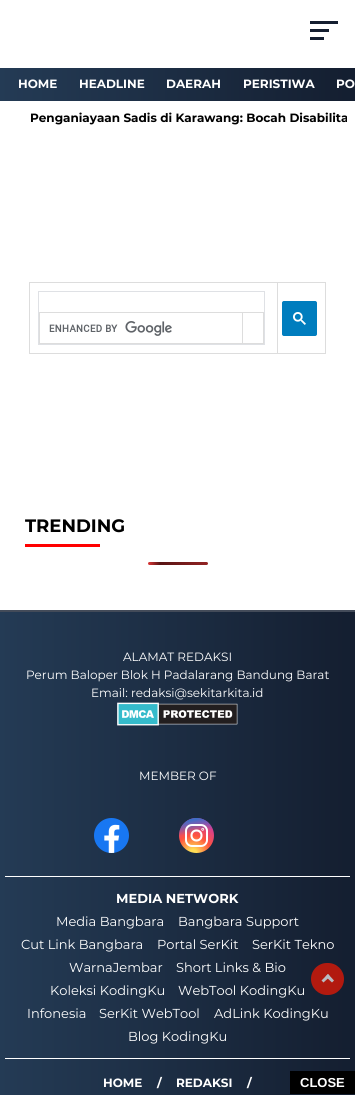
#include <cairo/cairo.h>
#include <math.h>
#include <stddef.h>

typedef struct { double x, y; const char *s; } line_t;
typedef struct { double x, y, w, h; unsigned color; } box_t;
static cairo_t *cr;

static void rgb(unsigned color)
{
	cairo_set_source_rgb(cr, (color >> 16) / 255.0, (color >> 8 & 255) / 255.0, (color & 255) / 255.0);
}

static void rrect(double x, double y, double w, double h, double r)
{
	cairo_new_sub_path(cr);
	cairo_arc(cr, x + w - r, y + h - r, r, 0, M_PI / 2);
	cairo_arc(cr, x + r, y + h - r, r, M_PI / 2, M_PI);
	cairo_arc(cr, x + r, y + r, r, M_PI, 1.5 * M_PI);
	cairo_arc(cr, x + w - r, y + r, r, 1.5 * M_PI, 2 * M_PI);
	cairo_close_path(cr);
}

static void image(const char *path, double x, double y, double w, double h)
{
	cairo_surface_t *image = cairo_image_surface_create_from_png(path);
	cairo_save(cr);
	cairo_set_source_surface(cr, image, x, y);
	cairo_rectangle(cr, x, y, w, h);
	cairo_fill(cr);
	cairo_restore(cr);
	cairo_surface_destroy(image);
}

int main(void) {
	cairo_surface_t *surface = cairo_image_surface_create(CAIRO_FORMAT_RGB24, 355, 1095);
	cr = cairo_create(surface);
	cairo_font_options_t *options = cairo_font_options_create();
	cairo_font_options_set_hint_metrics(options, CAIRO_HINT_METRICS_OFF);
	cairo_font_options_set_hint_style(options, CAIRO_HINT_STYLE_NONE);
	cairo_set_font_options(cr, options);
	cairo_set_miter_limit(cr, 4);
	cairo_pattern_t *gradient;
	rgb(0xffffff);
	cairo_paint(cr);
	{
		static const box_t items[] = {
			{310, 21, 28, 3, 0x141e30},
			{310, 29, 19, 3, 0x141e30},
			{310, 37, 14, 3, 0x141e30},
		};
		for (size_t i = 0; i < sizeof items / sizeof *items; i++) {
			rgb(items[i].color);
			cairo_rectangle(cr, items[i].x, items[i].y, items[i].w, items[i].h);
			cairo_fill(cr);
		}
	}
	gradient = cairo_pattern_create_linear(0, 85, 355, 84);
	cairo_pattern_add_color_stop_rgba(gradient, 0, 0.141, 0.231, 0.333, 1);
	cairo_pattern_add_color_stop_rgba(gradient, 1, 0.078, 0.118, 0.188, 1);
	cairo_set_source(cr, gradient);
	cairo_pattern_destroy(gradient);
	cairo_rectangle(cr, 0, 68, 355, 33);
	cairo_fill(cr);
	{
		static const box_t items[] = {
			{277, 282, 49, 1, 0xdddddd},
			{325, 282, 1, 72, 0xdddddd},
			{277, 353, 49, 1, 0xdddddd},
			{277, 282, 1, 72, 0xdddddd},
			{29, 282, 249, 1, 0xdddddd},
			{29, 353, 249, 1, 0xdddddd},
			{29, 282, 1, 72, 0xdddddd},
		};
		for (size_t i = 0; i < sizeof items / sizeof *items; i++) {
			rgb(items[i].color);
			cairo_rectangle(cr, items[i].x, items[i].y, items[i].w, items[i].h);
			cairo_fill(cr);
		}
	}
	cairo_rectangle(cr, 38.5, 291.5, 226, 53);
	rgb(0xdfe1e5);
	cairo_set_line_width(cr, 1);
	cairo_stroke(cr);
	{
		static const box_t items[] = {
			{242, 312, 22, 1, 0xdddddd},
			{263, 312, 1, 32, 0xdddddd},
			{242, 343, 22, 1, 0xdddddd},
			{242, 312, 1, 32, 0xdddddd},
			{39, 312, 204, 1, 0xdddddd},
			{39, 343, 204, 1, 0xdddddd},
			{39, 312, 1, 32, 0xdddddd},
		};
		for (size_t i = 0; i < sizeof items / sizeof *items; i++) {
			rgb(items[i].color);
			cairo_rectangle(cr, items[i].x, items[i].y, items[i].w, items[i].h);
			cairo_fill(cr);
		}
	}
	image("img/1.png", 49, 321, 123, 15);
	rgb(0x007dbe);
	rrect(282.5, 301.5, 34, 34, 1.5);
	cairo_fill_preserve(cr);
	cairo_stroke(cr);
	image("img/2.png", 293, 312, 13, 13);
	rgb(0xff0000);
	cairo_rectangle(cr, 25, 544, 75, 3);
	cairo_fill(cr);
	gradient = cairo_pattern_create_linear(148, 564, 268, 564);
	cairo_pattern_add_color_stop_rgba(gradient, 0, 0.867, 0.216, 0.216, 1);
	cairo_pattern_add_color_stop_rgba(gradient, 0.1, 0.341, 0.075, 0.075, 1);
	cairo_pattern_add_color_stop_rgba(gradient, 1, 0.867, 0.216, 0.216, 1);
	cairo_set_source(cr, gradient);
	cairo_pattern_destroy(gradient);
	rrect(148, 562, 60, 3, 1.5);
	cairo_fill(cr);
	gradient = cairo_pattern_create_linear(0, 931, 355, 931);
	cairo_pattern_add_color_stop_rgba(gradient, 0, 0.141, 0.231, 0.333, 1);
	cairo_pattern_add_color_stop_rgba(gradient, 1, 0.078, 0.118, 0.188, 1);
	cairo_set_source(cr, gradient);
	cairo_pattern_destroy(gradient);
	cairo_rectangle(cr, 0, 612, 355, 483);
	cairo_fill(cr);
	rgb(0x434b59);
	cairo_rectangle(cr, 0, 610, 355, 2);
	cairo_fill(cr);
	image("img/3.png", 117, 702, 121, 24);
	image("img/4.png", 94, 818, 35, 35);
	gradient = cairo_pattern_create_radial(193, 853, 0, 193, 853, 35);
	cairo_pattern_add_color_stop_rgba(gradient, 0.1, 1, 0.867, 0.333, 1);
	cairo_pattern_add_color_stop_rgba(gradient, 0.5, 1, 0.329, 0.243, 1);
	cairo_pattern_add_color_stop_rgba(gradient, 1, 0.784, 0.216, 0.671, 1);
	cairo_set_source(cr, gradient);
	cairo_pattern_destroy(gradient);
	cairo_arc(cr, 196.5, 835.5, 17.5, 0, 2 * M_PI);
	cairo_fill(cr);
	gradient = cairo_pattern_create_linear(179, 818, 186, 853);
	cairo_pattern_add_color_stop_rgba(gradient, 0.1, 0.216, 0.443, 0.784, 1);
	cairo_pattern_add_color_stop_rgba(gradient, 0.5, 0.216, 0.443, 0.784, 0);
	cairo_set_source(cr, gradient);
	cairo_pattern_destroy(gradient);
	cairo_arc(cr, 196.5, 835.5, 17.5, 0, 2 * M_PI);
	cairo_fill(cr);
	rrect(186, 825, 21, 21, 6);
	rgb(0xffffff);
	cairo_set_line_width(cr, 2);
	cairo_stroke(cr);
	cairo_arc(cr, 196.5, 835.5, 5, 0, 2 * M_PI);
	cairo_set_line_width(cr, 2.1);
	cairo_stroke(cr);
	cairo_arc(cr, 202.7, 829.3, 0.4, 0, 2 * M_PI);
	cairo_stroke(cr);
	cairo_rectangle(cr, 5, 876, 345, 1);
	cairo_fill(cr);
	cairo_rectangle(cr, 5, 1058, 345, 1);
	cairo_fill(cr);
	cairo_set_source_rgba(cr, 0.961, 0.09, 0, 0.7);
	rrect(311, 963, 33, 32, 16);
	cairo_fill(cr);
	rgb(0xb9bcc2);
	cairo_new_path(cr);
	cairo_move_to(cr, 323.5, 982.5);
	cairo_line_to(cr, 321.5, 980.5);
	cairo_line_to(cr, 328, 974);
	cairo_line_to(cr, 330, 976.5);
	cairo_close_path(cr);
	cairo_fill(cr);
	cairo_new_path(cr);
	cairo_move_to(cr, 332, 982.5);
	cairo_line_to(cr, 325.5, 976.5);
	cairo_line_to(cr, 328, 974);
	cairo_line_to(cr, 334, 980.5);
	cairo_close_path(cr);
	cairo_fill(cr);
	rgb(0x000000);
	cairo_rectangle(cr, 290, 1071, 65, 23);
	cairo_fill(cr);
	cairo_select_font_face(cr, "Montserrat", CAIRO_FONT_SLANT_NORMAL, CAIRO_FONT_WEIGHT_BOLD);
	cairo_set_font_size(cr, 12);
	rgb(0xffffff);
	{
		static const line_t items[] = {
			{18, 88, "HOME"},
			{79, 88, "HEADLINE"},
			{166, 88, "DAERAH"},
			{243, 88, "PERISTIWA"},
			{336, 88, "PO"},
		};
		for (size_t i = 0; i < sizeof items / sizeof *items; i++) {
			cairo_move_to(cr, items[i].x, items[i].y);
			cairo_show_text(cr, items[i].s);
		}
	}
	cairo_save(cr);
	cairo_rectangle(cr, 8, 101, 339, 30);
	cairo_clip(cr);
	rgb(0x000000);
	cairo_move_to(cr, 30, 122);
	cairo_show_text(cr, "Penganiayaan Sadis di Karawang: Bocah Disabilita");
	cairo_restore(cr);
	cairo_set_font_size(cr, 18);
	rgb(0x000000);
	cairo_move_to(cr, 25, 532);
	cairo_show_text(cr, "TRENDING");
	cairo_select_font_face(cr, "Montserrat", CAIRO_FONT_SLANT_NORMAL, CAIRO_FONT_WEIGHT_NORMAL);
	cairo_set_font_size(cr, 12);
	rgb(0xffffff);
	{
		static const line_t items[] = {
			{123, 661, "ALAMAT REDAKSI"},
			{26, 679, "Perum Baloper Blok H Padalarang Bandung Barat"},
			{91, 697, "Email: redaksi@sekitarkita.id"},
			{139, 780, "MEMBER OF"},
		};
		for (size_t i = 0; i < sizeof items / sizeof *items; i++) {
			cairo_move_to(cr, items[i].x, items[i].y);
			cairo_show_text(cr, items[i].s);
		}
	}
	cairo_select_font_face(cr, "Montserrat", CAIRO_FONT_SLANT_NORMAL, CAIRO_FONT_WEIGHT_BOLD);
	cairo_set_font_size(cr, 13);
	cairo_move_to(cr, 116, 903);
	cairo_show_text(cr, "MEDIA NETWORK");
	cairo_select_font_face(cr, "Montserrat", CAIRO_FONT_SLANT_NORMAL, CAIRO_FONT_WEIGHT_NORMAL);
	{
		static const line_t items[] = {
			{56, 926, "Media Bangbara"},
			{178, 926, "Bangbara Support"},
			{21, 949, "Cut Link Bangbara"},
			{157, 949, "Portal SerKit"},
			{252, 949, "SerKit Tekno"},
			{69, 972, "WarnaJembar"},
			{176, 972, "Short Links & Bio"},
			{50, 995, "Koleksi KodingKu"},
			{178, 995, "WebTool KodingKu"},
			{27, 1018, "Infonesia"},
			{99, 1018, "SerKit WebTool"},
			{214, 1018, "AdLink KodingKu"},
			{128, 1041, "Blog KodingKu"},
		};
		for (size_t i = 0; i < sizeof items / sizeof *items; i++) {
			cairo_move_to(cr, items[i].x, items[i].y);
			cairo_show_text(cr, items[i].s);
		}
	}
	cairo_select_font_face(cr, "Montserrat", CAIRO_FONT_SLANT_NORMAL, CAIRO_FONT_WEIGHT_BOLD);
	cairo_set_font_size(cr, 12);
	{
		static const line_t items[] = {
			{103, 1087, "HOME"},
			{157, 1087, "/"},
			{176, 1087, "REDAKSI"},
			{247, 1087, "/"},
		};
		for (size_t i = 0; i < sizeof items / sizeof *items; i++) {
			cairo_move_to(cr, items[i].x, items[i].y);
			cairo_show_text(cr, items[i].s);
		}
	}
	cairo_select_font_face(cr, "Liberation Sans", CAIRO_FONT_SLANT_NORMAL, CAIRO_FONT_WEIGHT_BOLD);
	cairo_set_font_size(cr, 13);
	cairo_move_to(cr, 300, 1087);
	cairo_show_text(cr, "CLOSE");
	cairo_surface_write_to_png(surface, "page.png");
	cairo_font_options_destroy(options);
	cairo_destroy(cr);
	cairo_surface_destroy(surface);
	return 0;
}
